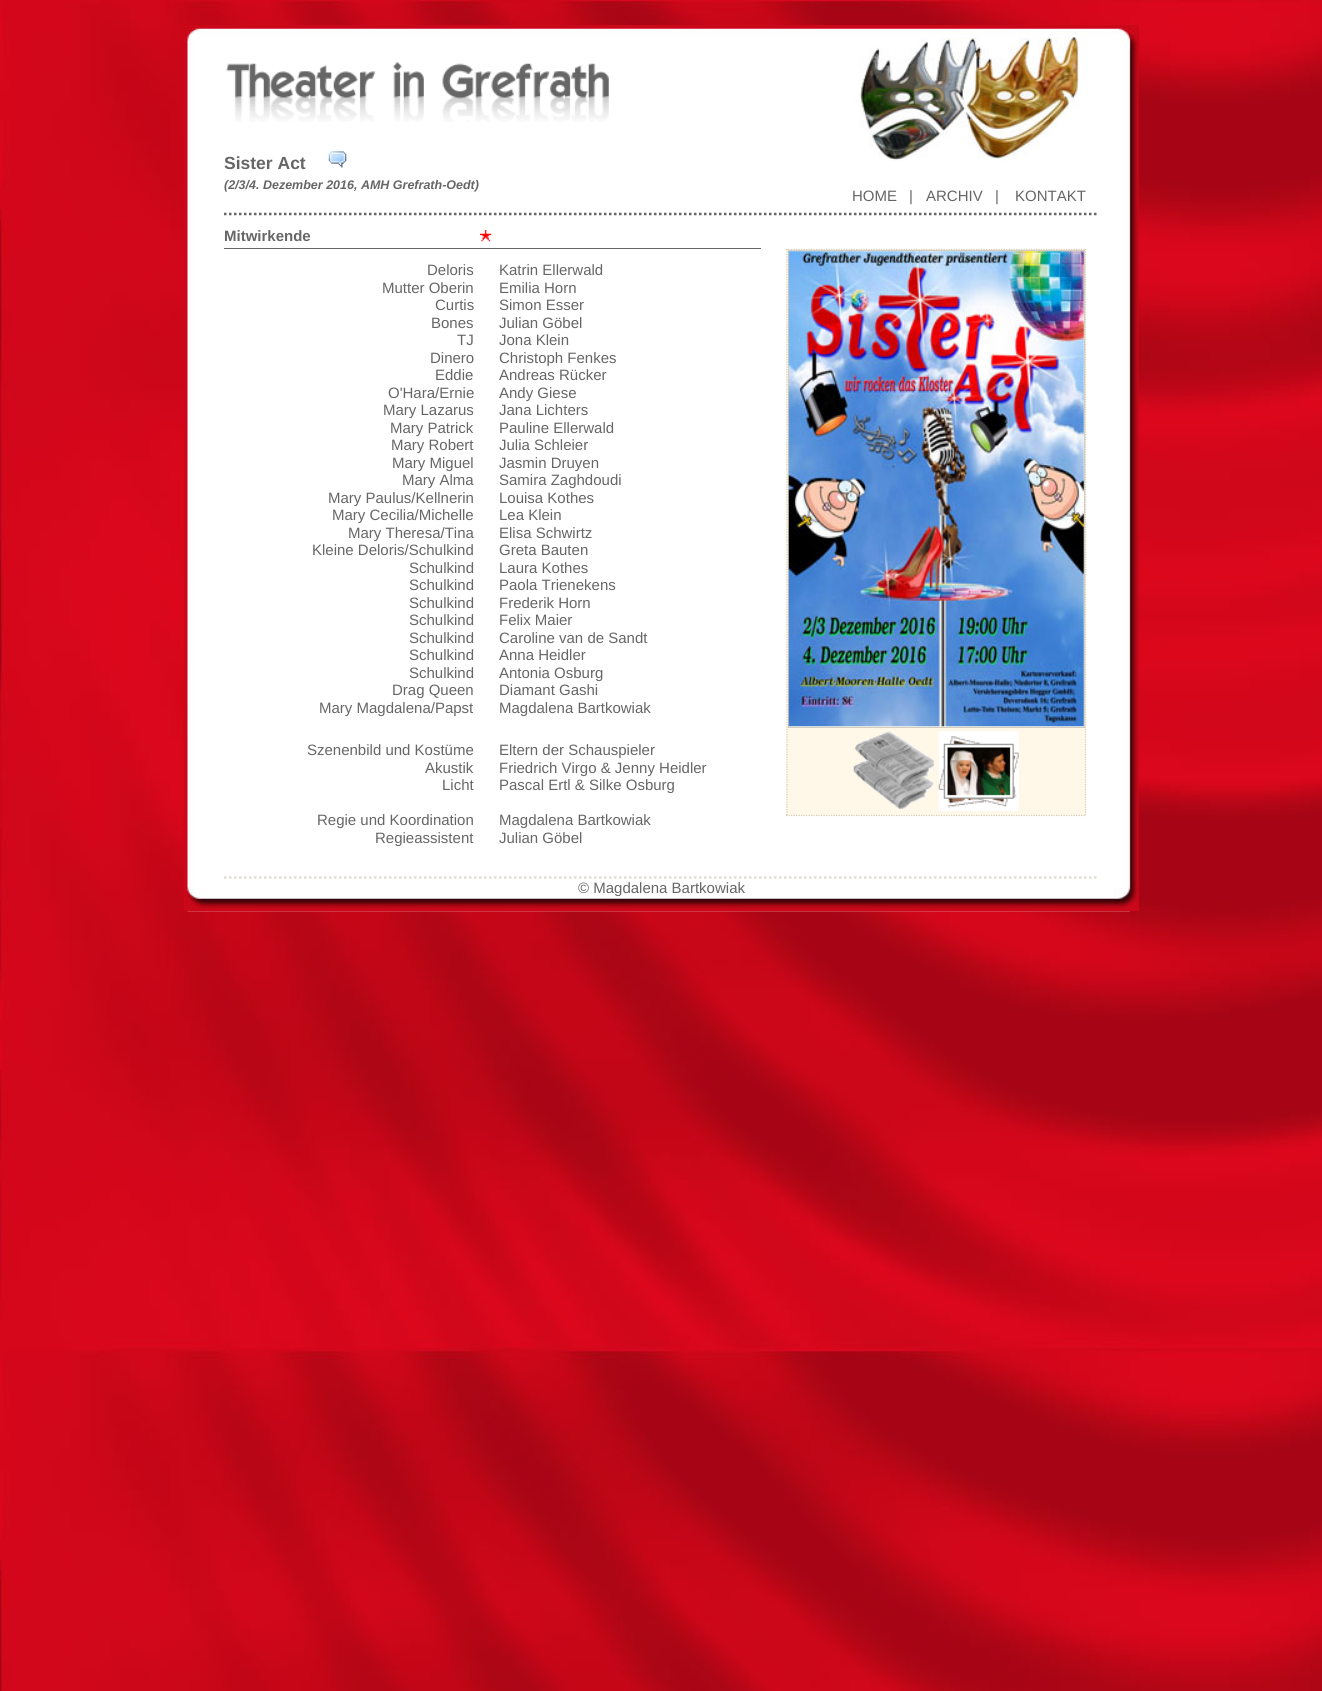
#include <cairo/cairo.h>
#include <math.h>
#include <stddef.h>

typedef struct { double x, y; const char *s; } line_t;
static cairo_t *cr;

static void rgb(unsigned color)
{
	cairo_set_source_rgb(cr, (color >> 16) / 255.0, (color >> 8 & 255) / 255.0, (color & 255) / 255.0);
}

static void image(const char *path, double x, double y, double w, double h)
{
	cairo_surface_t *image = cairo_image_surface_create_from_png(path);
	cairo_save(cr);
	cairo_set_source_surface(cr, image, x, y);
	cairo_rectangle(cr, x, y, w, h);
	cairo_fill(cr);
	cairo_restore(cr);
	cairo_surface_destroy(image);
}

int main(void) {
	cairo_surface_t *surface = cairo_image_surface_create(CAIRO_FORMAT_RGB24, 1322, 1691);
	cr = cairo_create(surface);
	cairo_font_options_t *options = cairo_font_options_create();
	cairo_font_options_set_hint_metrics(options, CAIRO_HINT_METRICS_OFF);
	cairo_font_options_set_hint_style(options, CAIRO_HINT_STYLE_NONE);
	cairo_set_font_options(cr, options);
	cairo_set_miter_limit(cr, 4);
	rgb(0xffffff);
	cairo_paint(cr);
	image("img/1.png", 0, 0, 1322, 1691);
	image("img/2.png", 183, 25, 956, 887);
	image("img/3.png", 183, 25, 956, 24);
	image("img/4.png", 859, 37, 220, 124);
	image("img/5.png", 226, 61, 383, 61);
	image("img/6.png", 328, 151, 19, 17);
	cairo_new_path(cr);
	cairo_move_to(cr, 224, 214);
	cairo_line_to(cr, 1099, 214);
	rgb(0x666666);
	cairo_set_line_width(cr, 2.5);
	cairo_set_dash(cr, (double[]){2.5, 2.5}, 2, 0);
	cairo_stroke(cr);
	cairo_rectangle(cr, 224, 248, 537, 1);
	cairo_fill(cr);
	image("img/7.png", 480, 230, 12, 12);
	rgb(0xfff8e8);
	cairo_rectangle(cr, 786, 249, 300, 567);
	cairo_fill(cr);
	cairo_new_path(cr);
	cairo_move_to(cr, 786, 249.5);
	cairo_line_to(cr, 1086, 249.5);
	rgb(0xd4cec0);
	cairo_set_line_width(cr, 1.2);
	cairo_set_dash(cr, (double[]){1.25, 1.25}, 2, 0);
	cairo_stroke(cr);
	cairo_new_path(cr);
	cairo_move_to(cr, 1085.5, 249);
	cairo_line_to(cr, 1085.5, 816);
	cairo_stroke(cr);
	cairo_new_path(cr);
	cairo_move_to(cr, 786, 815.5);
	cairo_line_to(cr, 1086, 815.5);
	cairo_stroke(cr);
	cairo_new_path(cr);
	cairo_move_to(cr, 787, 249);
	cairo_line_to(cr, 787, 816);
	cairo_stroke(cr);
	cairo_rectangle(cr, 788.5, 250.5, 296, 477);
	cairo_set_line_width(cr, 1);
	cairo_set_dash(cr, NULL, 0, 0);
	cairo_stroke(cr);
	image("img/8.png", 788, 251, 296, 476);
	image("img/9.png", 853, 731, 81, 78);
	image("img/10.png", 938, 731, 81, 81);
	image("img/11.png", 184, 887, 955, 25);
	cairo_new_path(cr);
	cairo_move_to(cr, 224, 877.5);
	cairo_line_to(cr, 1099, 877.5);
	rgb(0xe2ded5);
	cairo_set_line_width(cr, 2.5);
	cairo_set_dash(cr, (double[]){2.5, 2.5}, 2, 0);
	cairo_stroke(cr);
	cairo_select_font_face(cr, "Liberation Sans", CAIRO_FONT_SLANT_NORMAL, CAIRO_FONT_WEIGHT_BOLD);
	cairo_set_font_size(cr, 17.5);
	rgb(0x666666);
	cairo_move_to(cr, 224, 169);
	cairo_show_text(cr, "Sister Act");
	cairo_select_font_face(cr, "Liberation Sans", CAIRO_FONT_SLANT_ITALIC, CAIRO_FONT_WEIGHT_BOLD);
	cairo_set_font_size(cr, 12.5);
	cairo_move_to(cr, 224, 189);
	cairo_show_text(cr, "(2/3/4. Dezember 2016, AMH Grefrath-Oedt)");
	cairo_select_font_face(cr, "Liberation Sans", CAIRO_FONT_SLANT_NORMAL, CAIRO_FONT_WEIGHT_NORMAL);
	cairo_set_font_size(cr, 15);
	{
		static const line_t items[] = {
			{852, 201, "HOME"},
			{909, 201, "|"},
			{926, 201, "ARCHIV"},
			{995, 201, "|"},
			{1015, 201, "KONTAKT"},
		};
		for (size_t i = 0; i < sizeof items / sizeof *items; i++) {
			cairo_move_to(cr, items[i].x, items[i].y);
			cairo_show_text(cr, items[i].s);
		}
	}
	cairo_select_font_face(cr, "Liberation Sans", CAIRO_FONT_SLANT_NORMAL, CAIRO_FONT_WEIGHT_BOLD);
	cairo_move_to(cr, 224, 241);
	cairo_show_text(cr, "Mitwirkende");
	cairo_select_font_face(cr, "Liberation Sans", CAIRO_FONT_SLANT_NORMAL, CAIRO_FONT_WEIGHT_NORMAL);
	{
		static const line_t items[] = {
			{427, 275, "Deloris"},
			{382, 293, "Mutter Oberin"},
			{435, 310, "Curtis"},
			{431, 328, "Bones"},
			{457, 345, "TJ"},
			{430, 363, "Dinero"},
			{435, 380, "Eddie"},
			{388, 398, "O'Hara/Ernie"},
			{383, 415, "Mary Lazarus"},
			{390, 433, "Mary Patrick"},
			{391, 450, "Mary Robert"},
			{392, 468, "Mary Miguel"},
			{402, 485, "Mary Alma"},
			{328, 503, "Mary Paulus/Kellnerin"},
			{332, 520, "Mary Cecilia/Michelle"},
			{348, 538, "Mary Theresa/Tina"},
			{312, 555, "Kleine Deloris/Schulkind"},
			{409, 573, "Schulkind"},
			{409, 590, "Schulkind"},
			{409, 608, "Schulkind"},
			{409, 625, "Schulkind"},
			{409, 643, "Schulkind"},
			{409, 660, "Schulkind"},
			{409, 678, "Schulkind"},
			{392, 695, "Drag Queen"},
			{319, 713, "Mary Magdalena/Papst"},
			{307, 755, "Szenenbild und Kostüme"},
			{425, 773, "Akustik"},
			{442, 790, "Licht"},
			{317, 825, "Regie und Koordination"},
			{375, 843, "Regieassistent"},
			{499, 275, "Katrin Ellerwald"},
			{499, 293, "Emilia Horn"},
			{499, 310, "Simon Esser"},
			{499, 328, "Julian Göbel"},
			{499, 345, "Jona Klein"},
			{499, 363, "Christoph Fenkes"},
			{499, 380, "Andreas Rücker"},
			{499, 398, "Andy Giese"},
			{499, 415, "Jana Lichters"},
			{499, 433, "Pauline Ellerwald"},
			{499, 450, "Julia Schleier"},
			{499, 468, "Jasmin Druyen"},
			{499, 485, "Samira Zaghdoudi"},
			{499, 503, "Louisa Kothes"},
			{499, 520, "Lea Klein"},
			{499, 538, "Elisa Schwirtz"},
			{499, 555, "Greta Bauten"},
			{499, 573, "Laura Kothes"},
			{499, 590, "Paola Trienekens"},
			{499, 608, "Frederik Horn"},
			{499, 625, "Felix Maier"},
			{499, 643, "Caroline van de Sandt"},
			{499, 660, "Anna Heidler"},
			{499, 678, "Antonia Osburg"},
			{499, 695, "Diamant Gashi"},
			{499, 713, "Magdalena Bartkowiak"},
			{499, 755, "Eltern der Schauspieler"},
			{499, 773, "Friedrich Virgo & Jenny Heidler"},
			{499, 790, "Pascal Ertl & Silke Osburg"},
			{499, 825, "Magdalena Bartkowiak"},
			{499, 843, "Julian Göbel"},
			{578, 893, "© Magdalena Bartkowiak"},
		};
		for (size_t i = 0; i < sizeof items / sizeof *items; i++) {
			cairo_move_to(cr, items[i].x, items[i].y);
			cairo_show_text(cr, items[i].s);
		}
	}
	cairo_surface_write_to_png(surface, "page.png");
	cairo_font_options_destroy(options);
	cairo_destroy(cr);
	cairo_surface_destroy(surface);
	return 0;
}
